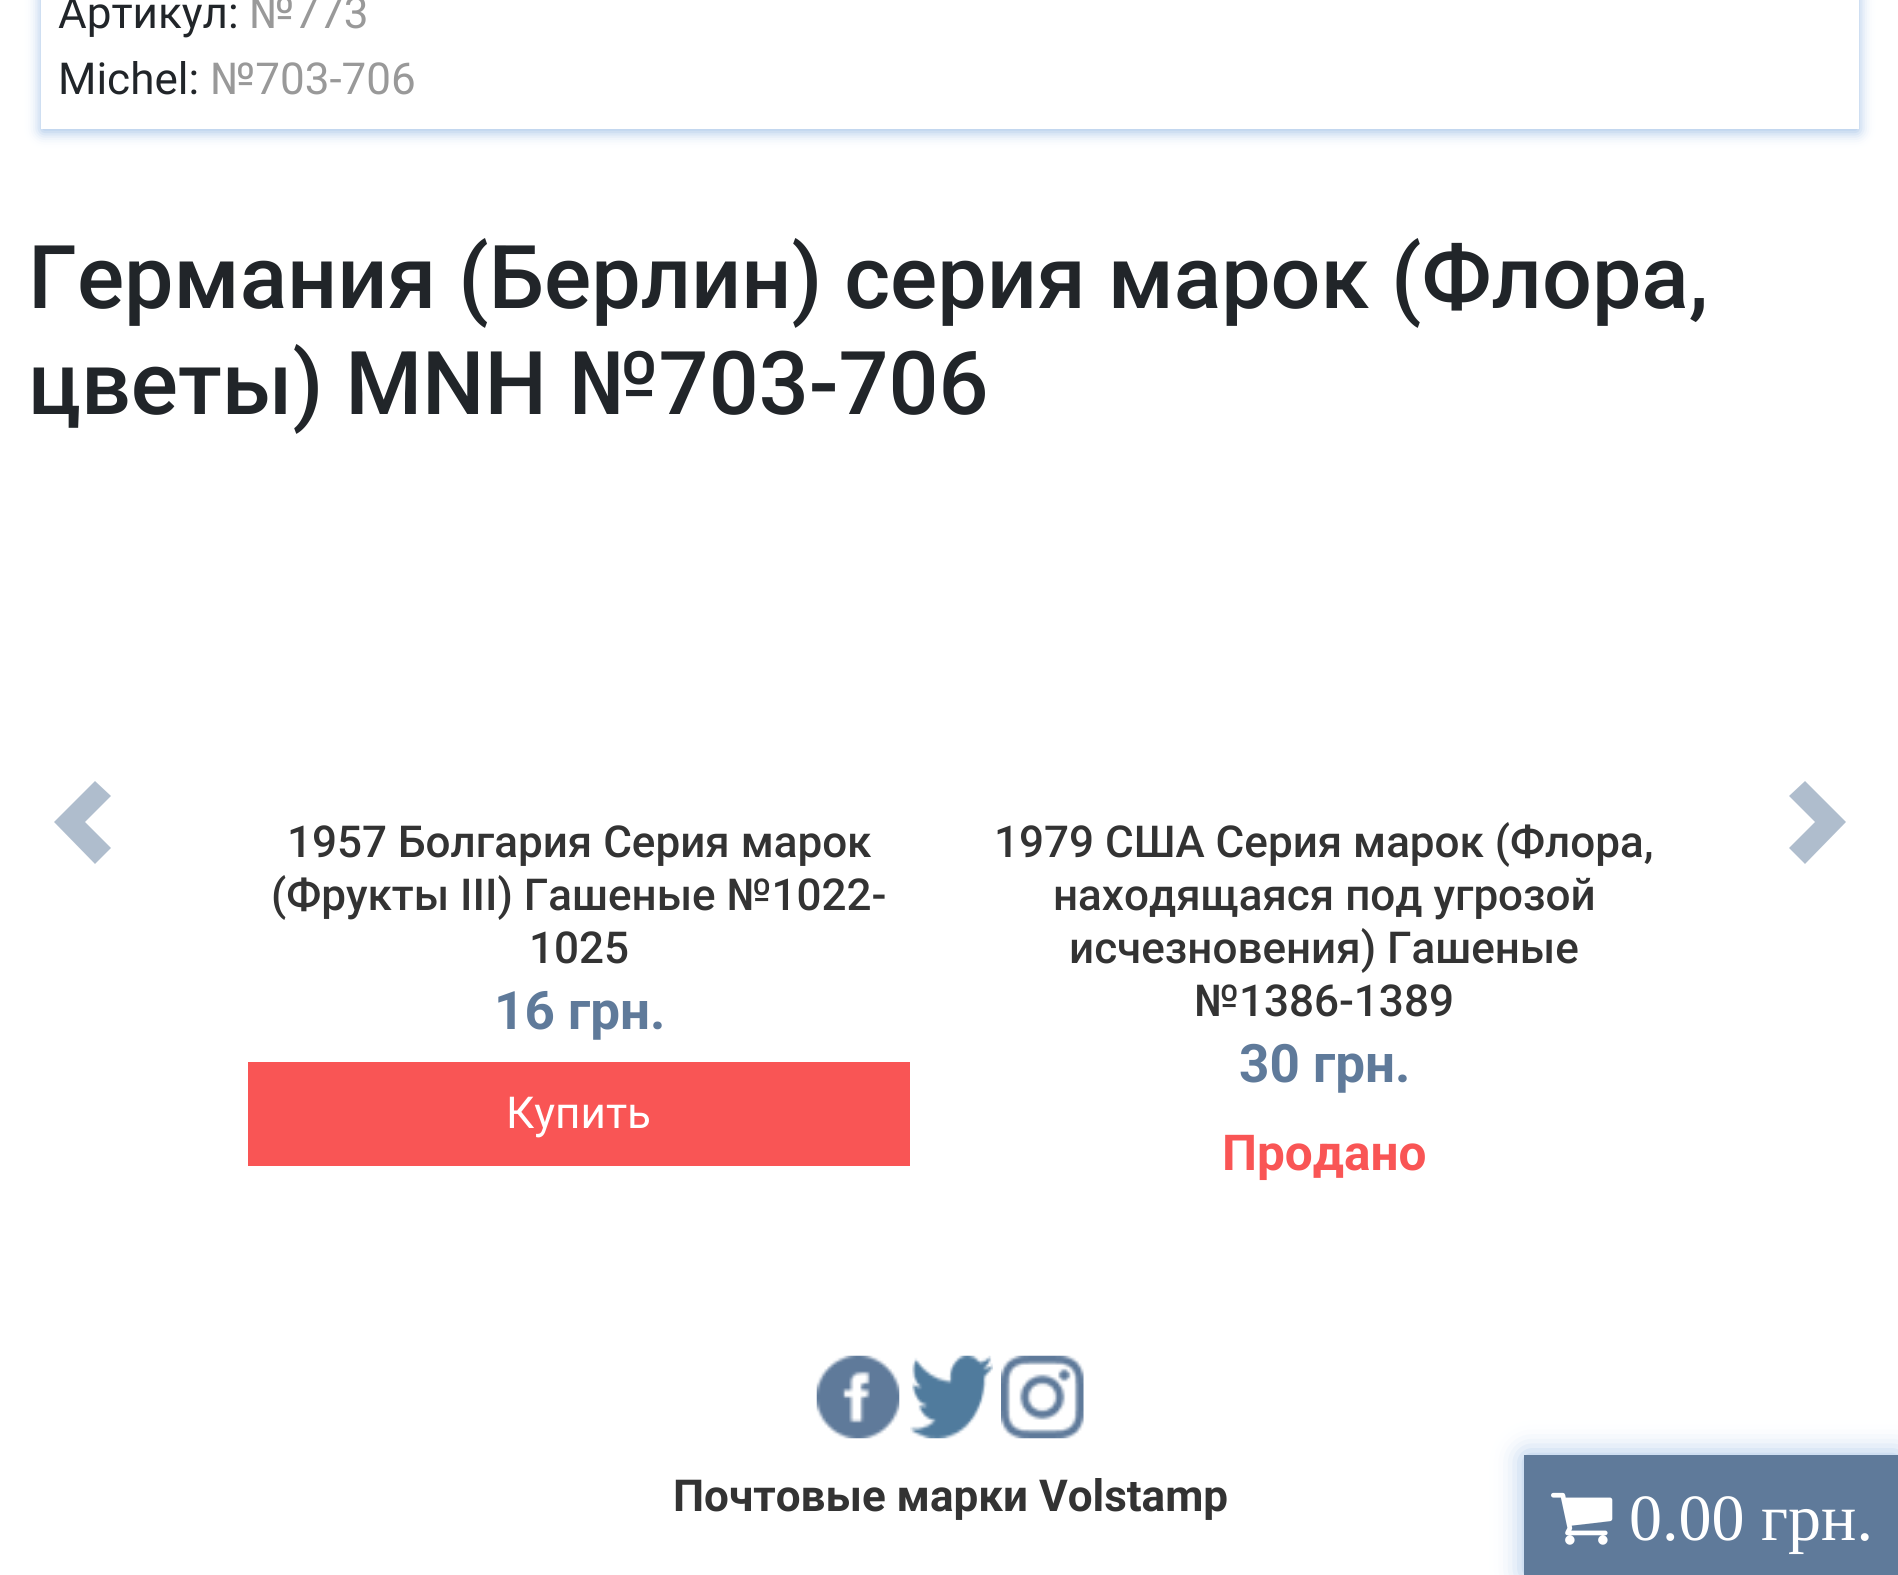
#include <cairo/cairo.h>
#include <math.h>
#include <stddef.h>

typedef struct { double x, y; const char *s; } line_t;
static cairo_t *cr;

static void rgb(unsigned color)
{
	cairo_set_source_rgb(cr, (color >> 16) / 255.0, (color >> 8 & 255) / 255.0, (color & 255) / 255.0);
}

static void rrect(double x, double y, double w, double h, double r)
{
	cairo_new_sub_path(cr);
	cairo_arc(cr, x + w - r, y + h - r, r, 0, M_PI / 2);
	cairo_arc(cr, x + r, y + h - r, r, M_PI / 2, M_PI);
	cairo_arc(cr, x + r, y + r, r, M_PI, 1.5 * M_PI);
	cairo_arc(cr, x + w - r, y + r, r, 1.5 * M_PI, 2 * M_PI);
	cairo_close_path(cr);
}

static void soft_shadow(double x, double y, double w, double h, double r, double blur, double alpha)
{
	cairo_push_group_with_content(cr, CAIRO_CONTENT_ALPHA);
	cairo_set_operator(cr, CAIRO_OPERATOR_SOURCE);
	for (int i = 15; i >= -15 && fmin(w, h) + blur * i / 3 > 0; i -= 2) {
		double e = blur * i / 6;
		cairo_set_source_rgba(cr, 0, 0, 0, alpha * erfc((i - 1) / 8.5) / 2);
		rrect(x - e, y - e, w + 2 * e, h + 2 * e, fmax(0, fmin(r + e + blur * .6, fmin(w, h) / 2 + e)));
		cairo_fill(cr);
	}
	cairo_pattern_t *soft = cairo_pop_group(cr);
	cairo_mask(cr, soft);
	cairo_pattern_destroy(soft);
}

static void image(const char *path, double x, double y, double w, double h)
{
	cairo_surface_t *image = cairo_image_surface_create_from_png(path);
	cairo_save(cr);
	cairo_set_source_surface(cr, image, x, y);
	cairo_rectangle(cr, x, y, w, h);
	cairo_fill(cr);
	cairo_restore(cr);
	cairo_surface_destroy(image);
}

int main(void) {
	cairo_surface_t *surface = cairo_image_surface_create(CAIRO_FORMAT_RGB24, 1898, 1575);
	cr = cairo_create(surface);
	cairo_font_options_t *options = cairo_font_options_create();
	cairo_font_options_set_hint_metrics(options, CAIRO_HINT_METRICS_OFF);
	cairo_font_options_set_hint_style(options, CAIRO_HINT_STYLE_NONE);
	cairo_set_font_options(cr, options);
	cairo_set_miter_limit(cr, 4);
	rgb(0xffffff);
	cairo_paint(cr);
	cairo_save(cr);
	cairo_set_fill_rule(cr, CAIRO_FILL_RULE_EVEN_ODD);
	cairo_new_path(cr);
	cairo_move_to(cr, 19, 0);
	cairo_line_to(cr, 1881, 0);
	cairo_line_to(cr, 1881, 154);
	cairo_line_to(cr, 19, 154);
	cairo_close_path(cr);
	cairo_move_to(cr, 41, -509);
	cairo_line_to(cr, 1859, -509);
	cairo_line_to(cr, 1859, 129);
	cairo_line_to(cr, 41, 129);
	cairo_close_path(cr);
	cairo_clip(cr);
	rgb(0xa0c0e6);
	soft_shadow(41, -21, 1818, 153, 0, 7, 1);
	cairo_restore(cr);
	rgb(0xafbdcd);
	cairo_new_path(cr);
	cairo_move_to(cr, 95, 781);
	cairo_line_to(cr, 54, 822);
	cairo_line_to(cr, 95, 864);
	cairo_line_to(cr, 111, 848);
	cairo_line_to(cr, 85, 822);
	cairo_line_to(cr, 111, 796);
	cairo_close_path(cr);
	cairo_fill(cr);
	rgb(0xf95555);
	cairo_rectangle(cr, 248, 1062, 662, 104);
	cairo_fill(cr);
	rgb(0xafbdcd);
	cairo_new_path(cr);
	cairo_move_to(cr, 1805, 781);
	cairo_line_to(cr, 1789, 796);
	cairo_line_to(cr, 1815, 822);
	cairo_line_to(cr, 1789, 848);
	cairo_line_to(cr, 1805, 864);
	cairo_line_to(cr, 1846, 822);
	cairo_close_path(cr);
	cairo_fill(cr);
	rgb(0xa0c0e6);
	soft_shadow(1524, 1455, 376, 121, 0, 14, 1);
	rgb(0x5f7a9a);
	cairo_rectangle(cr, 1524, 1455, 374, 120);
	cairo_fill(cr);
	image("img/1.png", 1551, 1492, 62, 53);
	image("img/2.png", 816, 1355, 84, 84);
	image("img/3.png", 910, 1355, 83, 84);
	image("img/4.png", 1001, 1355, 83, 84);
	cairo_select_font_face(cr, "Roboto", CAIRO_FONT_SLANT_NORMAL, CAIRO_FONT_WEIGHT_NORMAL);
	cairo_set_font_size(cr, 44);
	rgb(0x212529);
	cairo_move_to(cr, 58, 28);
	cairo_show_text(cr, "Артикул:");
	rgb(0x999999);
	cairo_move_to(cr, 249, 28);
	cairo_show_text(cr, "№773");
	rgb(0x212529);
	cairo_move_to(cr, 58, 94);
	cairo_show_text(cr, "Michel:");
	rgb(0x999999);
	cairo_move_to(cr, 210, 94);
	cairo_show_text(cr, "№703-706");
	cairo_select_font_face(cr, "Roboto Medium", CAIRO_FONT_SLANT_NORMAL, CAIRO_FONT_WEIGHT_NORMAL);
	cairo_set_font_size(cr, 88);
	rgb(0x212529);
	cairo_move_to(cr, 28, 308);
	cairo_show_text(cr, "Германия (Берлин) серия марок (Флора,");
	cairo_move_to(cr, 28, 414);
	cairo_show_text(cr, "цветы) MNH №703-706");
	cairo_set_font_size(cr, 44);
	rgb(0x333333);
	{
		static const line_t items[] = {
			{287, 857, "1957 Болгария Серия марок"},
			{271, 910, "(Фрукты III) Гашеные №1022-"},
			{529, 963, "1025"},
		};
		for (size_t i = 0; i < sizeof items / sizeof *items; i++) {
			cairo_move_to(cr, items[i].x, items[i].y);
			cairo_show_text(cr, items[i].s);
		}
	}
	cairo_select_font_face(cr, "Roboto", CAIRO_FONT_SLANT_NORMAL, CAIRO_FONT_WEIGHT_BOLD);
	cairo_set_font_size(cr, 53);
	rgb(0x5f7a9a);
	cairo_move_to(cr, 494, 1029);
	cairo_show_text(cr, "16 грн.");
	cairo_select_font_face(cr, "Roboto", CAIRO_FONT_SLANT_NORMAL, CAIRO_FONT_WEIGHT_NORMAL);
	cairo_set_font_size(cr, 44);
	rgb(0xffffff);
	cairo_move_to(cr, 506, 1128);
	cairo_show_text(cr, "Купить");
	cairo_select_font_face(cr, "Roboto Medium", CAIRO_FONT_SLANT_NORMAL, CAIRO_FONT_WEIGHT_NORMAL);
	rgb(0x333333);
	{
		static const line_t items[] = {
			{994, 857, "1979 США Серия марок (Флора,"},
			{1053, 910, "находящаяся под угрозой"},
			{1069, 963, "исчезновения) Гашеные"},
			{1194, 1016, "№1386-1389"},
		};
		for (size_t i = 0; i < sizeof items / sizeof *items; i++) {
			cairo_move_to(cr, items[i].x, items[i].y);
			cairo_show_text(cr, items[i].s);
		}
	}
	cairo_select_font_face(cr, "Roboto", CAIRO_FONT_SLANT_NORMAL, CAIRO_FONT_WEIGHT_BOLD);
	cairo_set_font_size(cr, 53);
	rgb(0x5f7a9a);
	cairo_move_to(cr, 1239, 1082);
	cairo_show_text(cr, "30 грн.");
	cairo_set_font_size(cr, 49.5);
	rgb(0xf95555);
	cairo_move_to(cr, 1222, 1170);
	cairo_show_text(cr, "Продано");
	cairo_select_font_face(cr, "Liberation Serif", CAIRO_FONT_SLANT_NORMAL, CAIRO_FONT_WEIGHT_NORMAL);
	cairo_set_font_size(cr, 66);
	rgb(0xffffff);
	cairo_move_to(cr, 1629, 1540);
	cairo_show_text(cr, "0.00 грн.");
	cairo_select_font_face(cr, "Roboto", CAIRO_FONT_SLANT_NORMAL, CAIRO_FONT_WEIGHT_BOLD);
	cairo_set_font_size(cr, 44);
	rgb(0x333333);
	cairo_move_to(cr, 673, 1511);
	cairo_show_text(cr, "Почтовые марки Volstamp");
	cairo_surface_write_to_png(surface, "page.png");
	cairo_font_options_destroy(options);
	cairo_destroy(cr);
	cairo_surface_destroy(surface);
	return 0;
}
